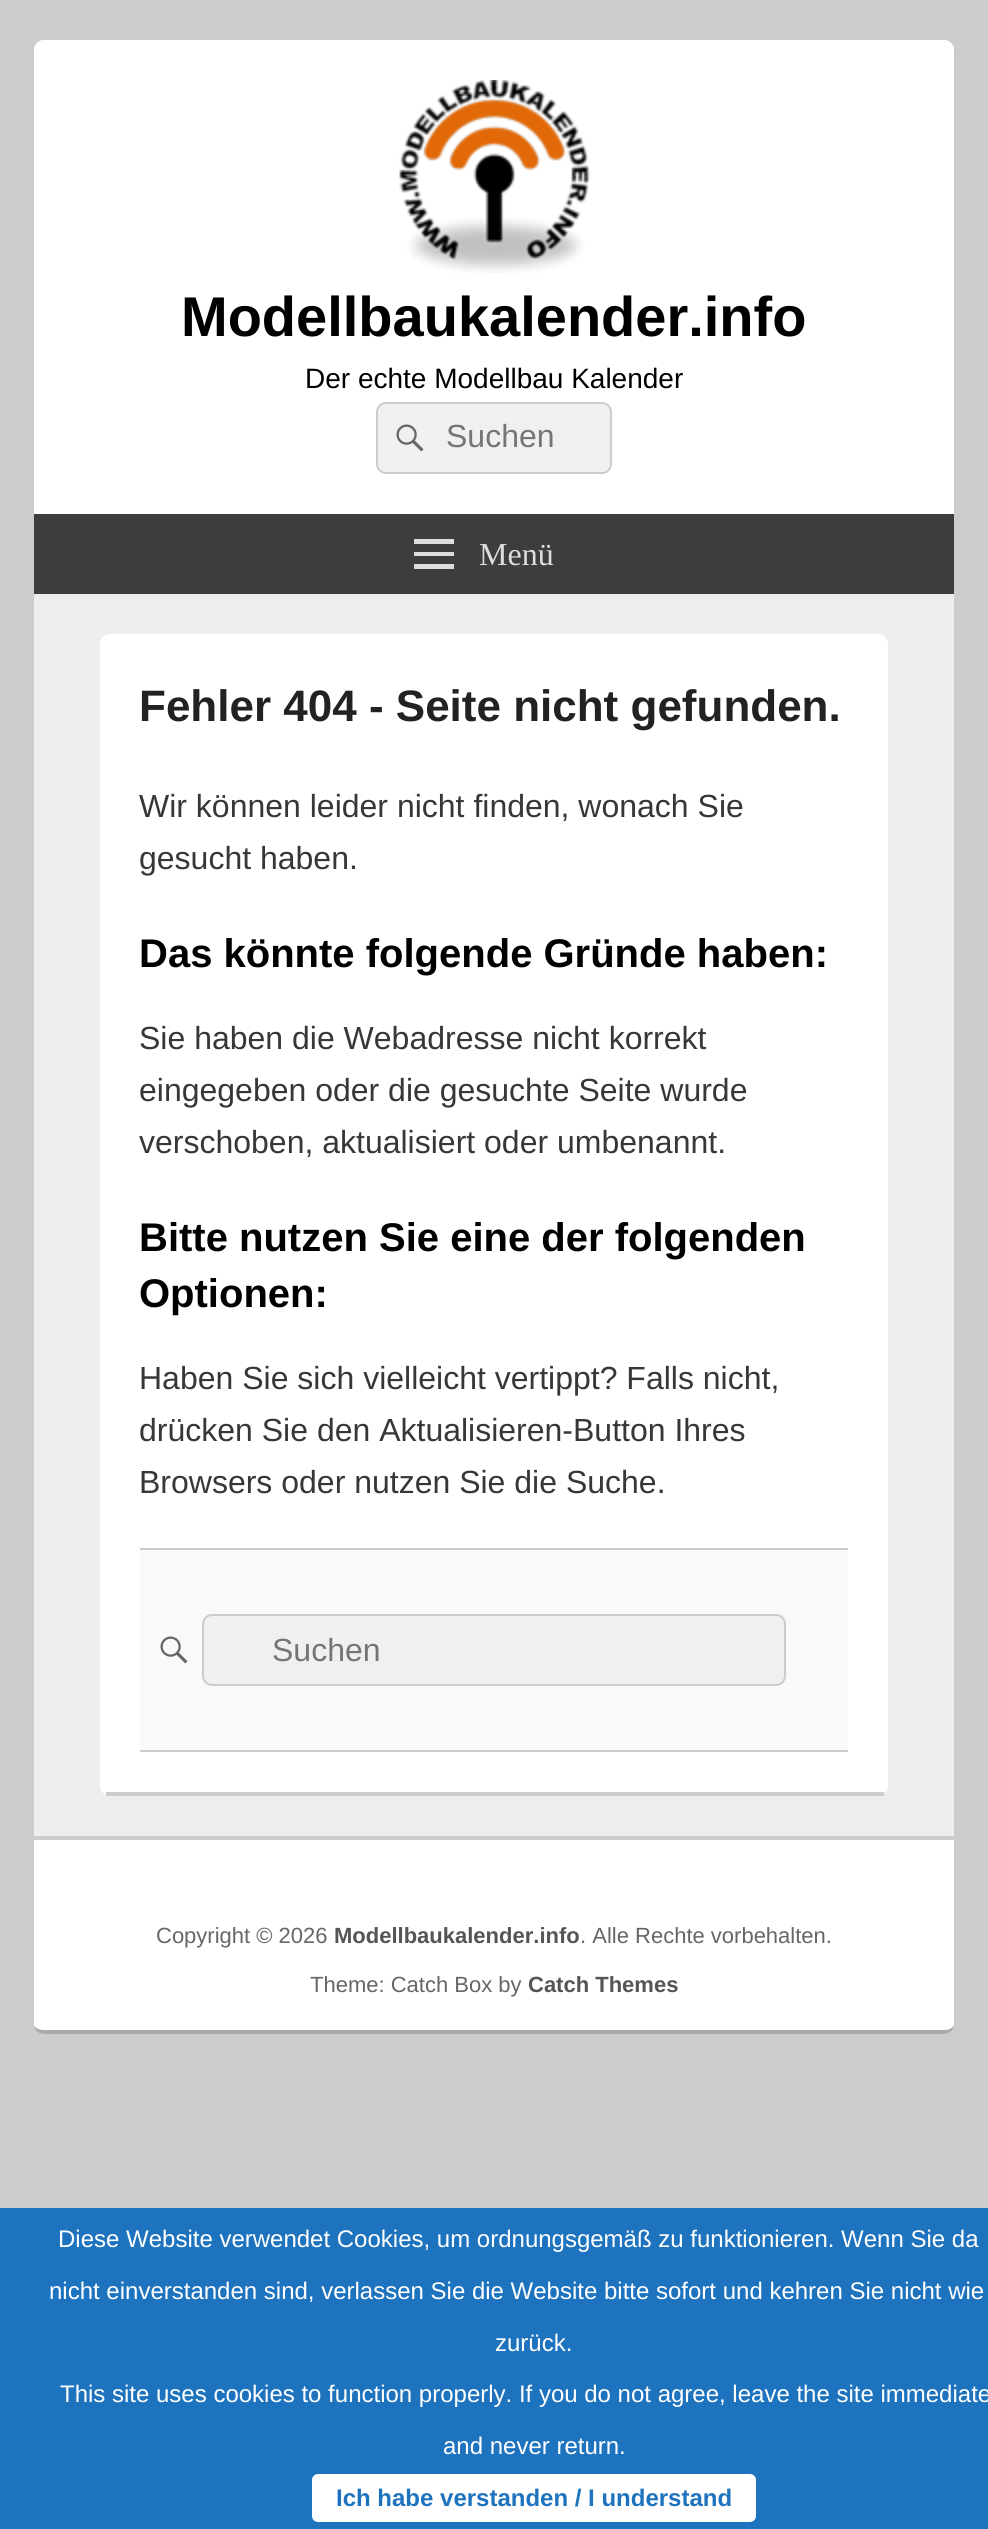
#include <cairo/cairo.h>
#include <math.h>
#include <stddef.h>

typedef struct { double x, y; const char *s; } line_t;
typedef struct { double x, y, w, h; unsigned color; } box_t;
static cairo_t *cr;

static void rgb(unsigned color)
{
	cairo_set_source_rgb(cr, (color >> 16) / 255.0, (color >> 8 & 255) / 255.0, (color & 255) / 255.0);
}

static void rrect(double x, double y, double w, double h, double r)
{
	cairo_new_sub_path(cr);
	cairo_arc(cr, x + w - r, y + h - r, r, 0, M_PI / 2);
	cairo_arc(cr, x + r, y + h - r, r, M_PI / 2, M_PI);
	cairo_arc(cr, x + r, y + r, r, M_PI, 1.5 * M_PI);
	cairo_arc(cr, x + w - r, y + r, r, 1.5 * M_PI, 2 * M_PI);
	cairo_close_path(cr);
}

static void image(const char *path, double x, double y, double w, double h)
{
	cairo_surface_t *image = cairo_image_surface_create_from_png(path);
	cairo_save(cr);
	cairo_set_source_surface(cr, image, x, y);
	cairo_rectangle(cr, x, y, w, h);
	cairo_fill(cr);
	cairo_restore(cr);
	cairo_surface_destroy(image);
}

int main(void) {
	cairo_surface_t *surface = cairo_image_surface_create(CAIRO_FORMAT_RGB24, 988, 2529);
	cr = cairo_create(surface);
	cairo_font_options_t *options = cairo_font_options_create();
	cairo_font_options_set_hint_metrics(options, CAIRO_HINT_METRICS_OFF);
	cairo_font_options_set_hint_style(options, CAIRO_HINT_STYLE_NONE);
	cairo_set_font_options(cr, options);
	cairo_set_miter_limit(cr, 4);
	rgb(0xcccccc);
	cairo_paint(cr);
	rgb(0xeeeeee);
	rrect(34, 40, 920, 1994, 10);
	cairo_fill(cr);
	rgb(0xffffff);
	cairo_new_path(cr);
	cairo_move_to(cr, 44, 40);
	cairo_line_to(cr, 944, 40);
	cairo_curve_to(cr, 949.5, 40, 954, 44.5, 954, 50);
	cairo_line_to(cr, 954, 594);
	cairo_line_to(cr, 34, 594);
	cairo_line_to(cr, 34, 50);
	cairo_curve_to(cr, 34, 44.5, 38.5, 40, 44, 40);
	cairo_close_path(cr);
	cairo_fill(cr);
	image("img/1.png", 399, 80, 192, 193);
	rgb(0xf0f0f0);
	rrect(377, 403, 234, 70, 9);
	cairo_fill_preserve(cr);
	rgb(0xcccccc);
	cairo_stroke(cr);
	image("img/2.png", 396, 424, 28, 28);
	rgb(0x3d3d3d);
	cairo_rectangle(cr, 34, 514, 920, 80);
	cairo_fill(cr);
	rgb(0xdddddd);
	cairo_new_path(cr);
	cairo_move_to(cr, 414, 569);
	cairo_line_to(cr, 414, 564);
	cairo_line_to(cr, 454, 564);
	cairo_line_to(cr, 454, 569);
	cairo_close_path(cr);
	cairo_move_to(cr, 414, 539);
	cairo_line_to(cr, 454, 539);
	cairo_line_to(cr, 454, 544);
	cairo_line_to(cr, 414, 544);
	cairo_close_path(cr);
	cairo_move_to(cr, 414, 556);
	cairo_line_to(cr, 414, 552);
	cairo_line_to(cr, 454, 552);
	cairo_line_to(cr, 454, 556);
	cairo_close_path(cr);
	cairo_fill(cr);
	rgb(0xffffff);
	rrect(100, 634, 788, 1162, 10);
	cairo_fill(cr);
	{
		static const box_t items[] = {
			{106, 1792, 778, 4, 0xcccccc},
			{140, 1550, 708, 200, 0xf9f9f9},
			{140, 1548, 708, 2, 0xcccccc},
			{140, 1750, 708, 2, 0xcccccc},
		};
		for (size_t i = 0; i < sizeof items / sizeof *items; i++) {
			rgb(items[i].color);
			cairo_rectangle(cr, items[i].x, items[i].y, items[i].w, items[i].h);
			cairo_fill(cr);
		}
	}
	image("img/3.png", 160, 1636, 28, 28);
	rgb(0xf0f0f0);
	rrect(203, 1615, 582, 70, 9);
	cairo_fill_preserve(cr);
	rgb(0xcccccc);
	cairo_stroke(cr);
	cairo_rectangle(cr, 34, 1836, 920, 2);
	cairo_fill(cr);
	rgb(0xffffff);
	cairo_new_path(cr);
	cairo_move_to(cr, 34, 1838);
	cairo_line_to(cr, 954, 1838);
	cairo_line_to(cr, 954, 2024);
	cairo_curve_to(cr, 954, 2029.5, 949.5, 2034, 944, 2034);
	cairo_line_to(cr, 44, 2034);
	cairo_curve_to(cr, 38.5, 2034, 34, 2029.5, 34, 2024);
	cairo_close_path(cr);
	cairo_fill(cr);
	rgb(0xcccccc);
	cairo_rectangle(cr, 34, 1838, 920, 2);
	cairo_fill(cr);
	rgb(0xaaaaaa);
	cairo_new_path(cr);
	cairo_move_to(cr, 44, 2034);
	cairo_line_to(cr, 944, 2034);
	cairo_curve_to(cr, 950, 2034, 954, 2030, 954, 2024);
	cairo_curve_to(cr, 954, 2027, 950, 2030, 944, 2030);
	cairo_line_to(cr, 44, 2030);
	cairo_curve_to(cr, 38, 2030, 34, 2027, 34, 2024);
	cairo_curve_to(cr, 34, 2030, 38, 2034, 44, 2034);
	cairo_close_path(cr);
	cairo_fill(cr);
	rgb(0x1e73be);
	cairo_rectangle(cr, 0, 2208, 988, 321);
	cairo_fill(cr);
	rgb(0xffffff);
	rrect(312, 2474, 444, 48, 6);
	cairo_fill(cr);
	cairo_select_font_face(cr, "Liberation Sans", CAIRO_FONT_SLANT_NORMAL, CAIRO_FONT_WEIGHT_BOLD);
	cairo_set_font_size(cr, 56);
	rgb(0x000000);
	cairo_move_to(cr, 181, 336);
	cairo_show_text(cr, "Modellbaukalender.info");
	cairo_select_font_face(cr, "Liberation Sans", CAIRO_FONT_SLANT_NORMAL, CAIRO_FONT_WEIGHT_NORMAL);
	cairo_set_font_size(cr, 28);
	cairo_move_to(cr, 305, 388);
	cairo_show_text(cr, "Der echte Modellbau Kalender");
	cairo_set_font_size(cr, 32);
	rgb(0x757575);
	cairo_move_to(cr, 446, 447);
	cairo_show_text(cr, "Suchen");
	cairo_select_font_face(cr, "Liberation Serif", CAIRO_FONT_SLANT_NORMAL, CAIRO_FONT_WEIGHT_NORMAL);
	rgb(0xdddddd);
	cairo_move_to(cr, 479, 565);
	cairo_show_text(cr, "Menü");
	cairo_select_font_face(cr, "Liberation Sans", CAIRO_FONT_SLANT_NORMAL, CAIRO_FONT_WEIGHT_BOLD);
	cairo_set_font_size(cr, 44);
	rgb(0x222222);
	cairo_move_to(cr, 139, 721);
	cairo_show_text(cr, "Fehler 404 - Seite nicht gefunden.");
	cairo_select_font_face(cr, "Liberation Sans", CAIRO_FONT_SLANT_NORMAL, CAIRO_FONT_WEIGHT_NORMAL);
	cairo_set_font_size(cr, 32);
	rgb(0x373737);
	cairo_move_to(cr, 139, 817);
	cairo_show_text(cr, "Wir können leider nicht finden, wonach Sie");
	cairo_move_to(cr, 139, 869);
	cairo_show_text(cr, "gesucht haben.");
	cairo_select_font_face(cr, "Liberation Sans", CAIRO_FONT_SLANT_NORMAL, CAIRO_FONT_WEIGHT_BOLD);
	cairo_set_font_size(cr, 40);
	rgb(0x000000);
	cairo_move_to(cr, 139, 967);
	cairo_show_text(cr, "Das könnte folgende Gründe haben:");
	cairo_select_font_face(cr, "Liberation Sans", CAIRO_FONT_SLANT_NORMAL, CAIRO_FONT_WEIGHT_NORMAL);
	cairo_set_font_size(cr, 32);
	rgb(0x373737);
	{
		static const line_t items[] = {
			{139, 1049, "Sie haben die Webadresse nicht korrekt"},
			{139, 1101, "eingegeben oder die gesuchte Seite wurde"},
			{139, 1153, "verschoben, aktualisiert oder umbenannt."},
		};
		for (size_t i = 0; i < sizeof items / sizeof *items; i++) {
			cairo_move_to(cr, items[i].x, items[i].y);
			cairo_show_text(cr, items[i].s);
		}
	}
	cairo_select_font_face(cr, "Liberation Sans", CAIRO_FONT_SLANT_NORMAL, CAIRO_FONT_WEIGHT_BOLD);
	cairo_set_font_size(cr, 40);
	rgb(0x000000);
	cairo_move_to(cr, 139, 1251);
	cairo_show_text(cr, "Bitte nutzen Sie eine der folgenden");
	cairo_move_to(cr, 139, 1307);
	cairo_show_text(cr, "Optionen:");
	cairo_select_font_face(cr, "Liberation Sans", CAIRO_FONT_SLANT_NORMAL, CAIRO_FONT_WEIGHT_NORMAL);
	cairo_set_font_size(cr, 32);
	rgb(0x373737);
	{
		static const line_t items[] = {
			{139, 1389, "Haben Sie sich vielleicht vertippt? Falls nicht,"},
			{139, 1441, "drücken Sie den Aktualisieren-Button Ihres"},
			{139, 1493, "Browsers oder nutzen Sie die Suche."},
		};
		for (size_t i = 0; i < sizeof items / sizeof *items; i++) {
			cairo_move_to(cr, items[i].x, items[i].y);
			cairo_show_text(cr, items[i].s);
		}
	}
	rgb(0x757575);
	cairo_move_to(cr, 272, 1661);
	cairo_show_text(cr, "Suchen");
	cairo_set_font_size(cr, 22);
	rgb(0x666666);
	cairo_move_to(cr, 156, 1943);
	cairo_show_text(cr, "Copyright © 2026");
	cairo_select_font_face(cr, "Liberation Sans", CAIRO_FONT_SLANT_NORMAL, CAIRO_FONT_WEIGHT_BOLD);
	rgb(0x555555);
	cairo_move_to(cr, 334, 1943);
	cairo_show_text(cr, "Modellbaukalender.info");
	cairo_select_font_face(cr, "Liberation Sans", CAIRO_FONT_SLANT_NORMAL, CAIRO_FONT_WEIGHT_NORMAL);
	rgb(0x666666);
	cairo_move_to(cr, 580, 1943);
	cairo_show_text(cr, ". Alle Rechte vorbehalten.");
	cairo_move_to(cr, 310, 1992);
	cairo_show_text(cr, "Theme: Catch Box by");
	cairo_select_font_face(cr, "Liberation Sans", CAIRO_FONT_SLANT_NORMAL, CAIRO_FONT_WEIGHT_BOLD);
	rgb(0x555555);
	cairo_move_to(cr, 528, 1992);
	cairo_show_text(cr, "Catch Themes");
	cairo_select_font_face(cr, "Liberation Sans", CAIRO_FONT_SLANT_NORMAL, CAIRO_FONT_WEIGHT_NORMAL);
	cairo_set_font_size(cr, 24);
	rgb(0xffffff);
	{
		static const line_t items[] = {
			{58, 2247, "Diese Website verwendet Cookies, um ordnungsgemäß zu funktionieren. Wenn Sie da"},
			{49, 2299, "nicht einverstanden sind, verlassen Sie die Website bitte sofort und kehren Sie nicht wie"},
			{495, 2351, "zurück."},
			{60, 2402, "This site uses cookies to function properly. If you do not agree, leave the site immediate"},
			{443, 2454, "and never return."},
		};
		for (size_t i = 0; i < sizeof items / sizeof *items; i++) {
			cairo_move_to(cr, items[i].x, items[i].y);
			cairo_show_text(cr, items[i].s);
		}
	}
	cairo_select_font_face(cr, "Liberation Sans", CAIRO_FONT_SLANT_NORMAL, CAIRO_FONT_WEIGHT_BOLD);
	rgb(0x1e73be);
	cairo_move_to(cr, 336, 2506);
	cairo_show_text(cr, "Ich habe verstanden / I understand");
	cairo_surface_write_to_png(surface, "page.png");
	cairo_font_options_destroy(options);
	cairo_destroy(cr);
	cairo_surface_destroy(surface);
	return 0;
}
